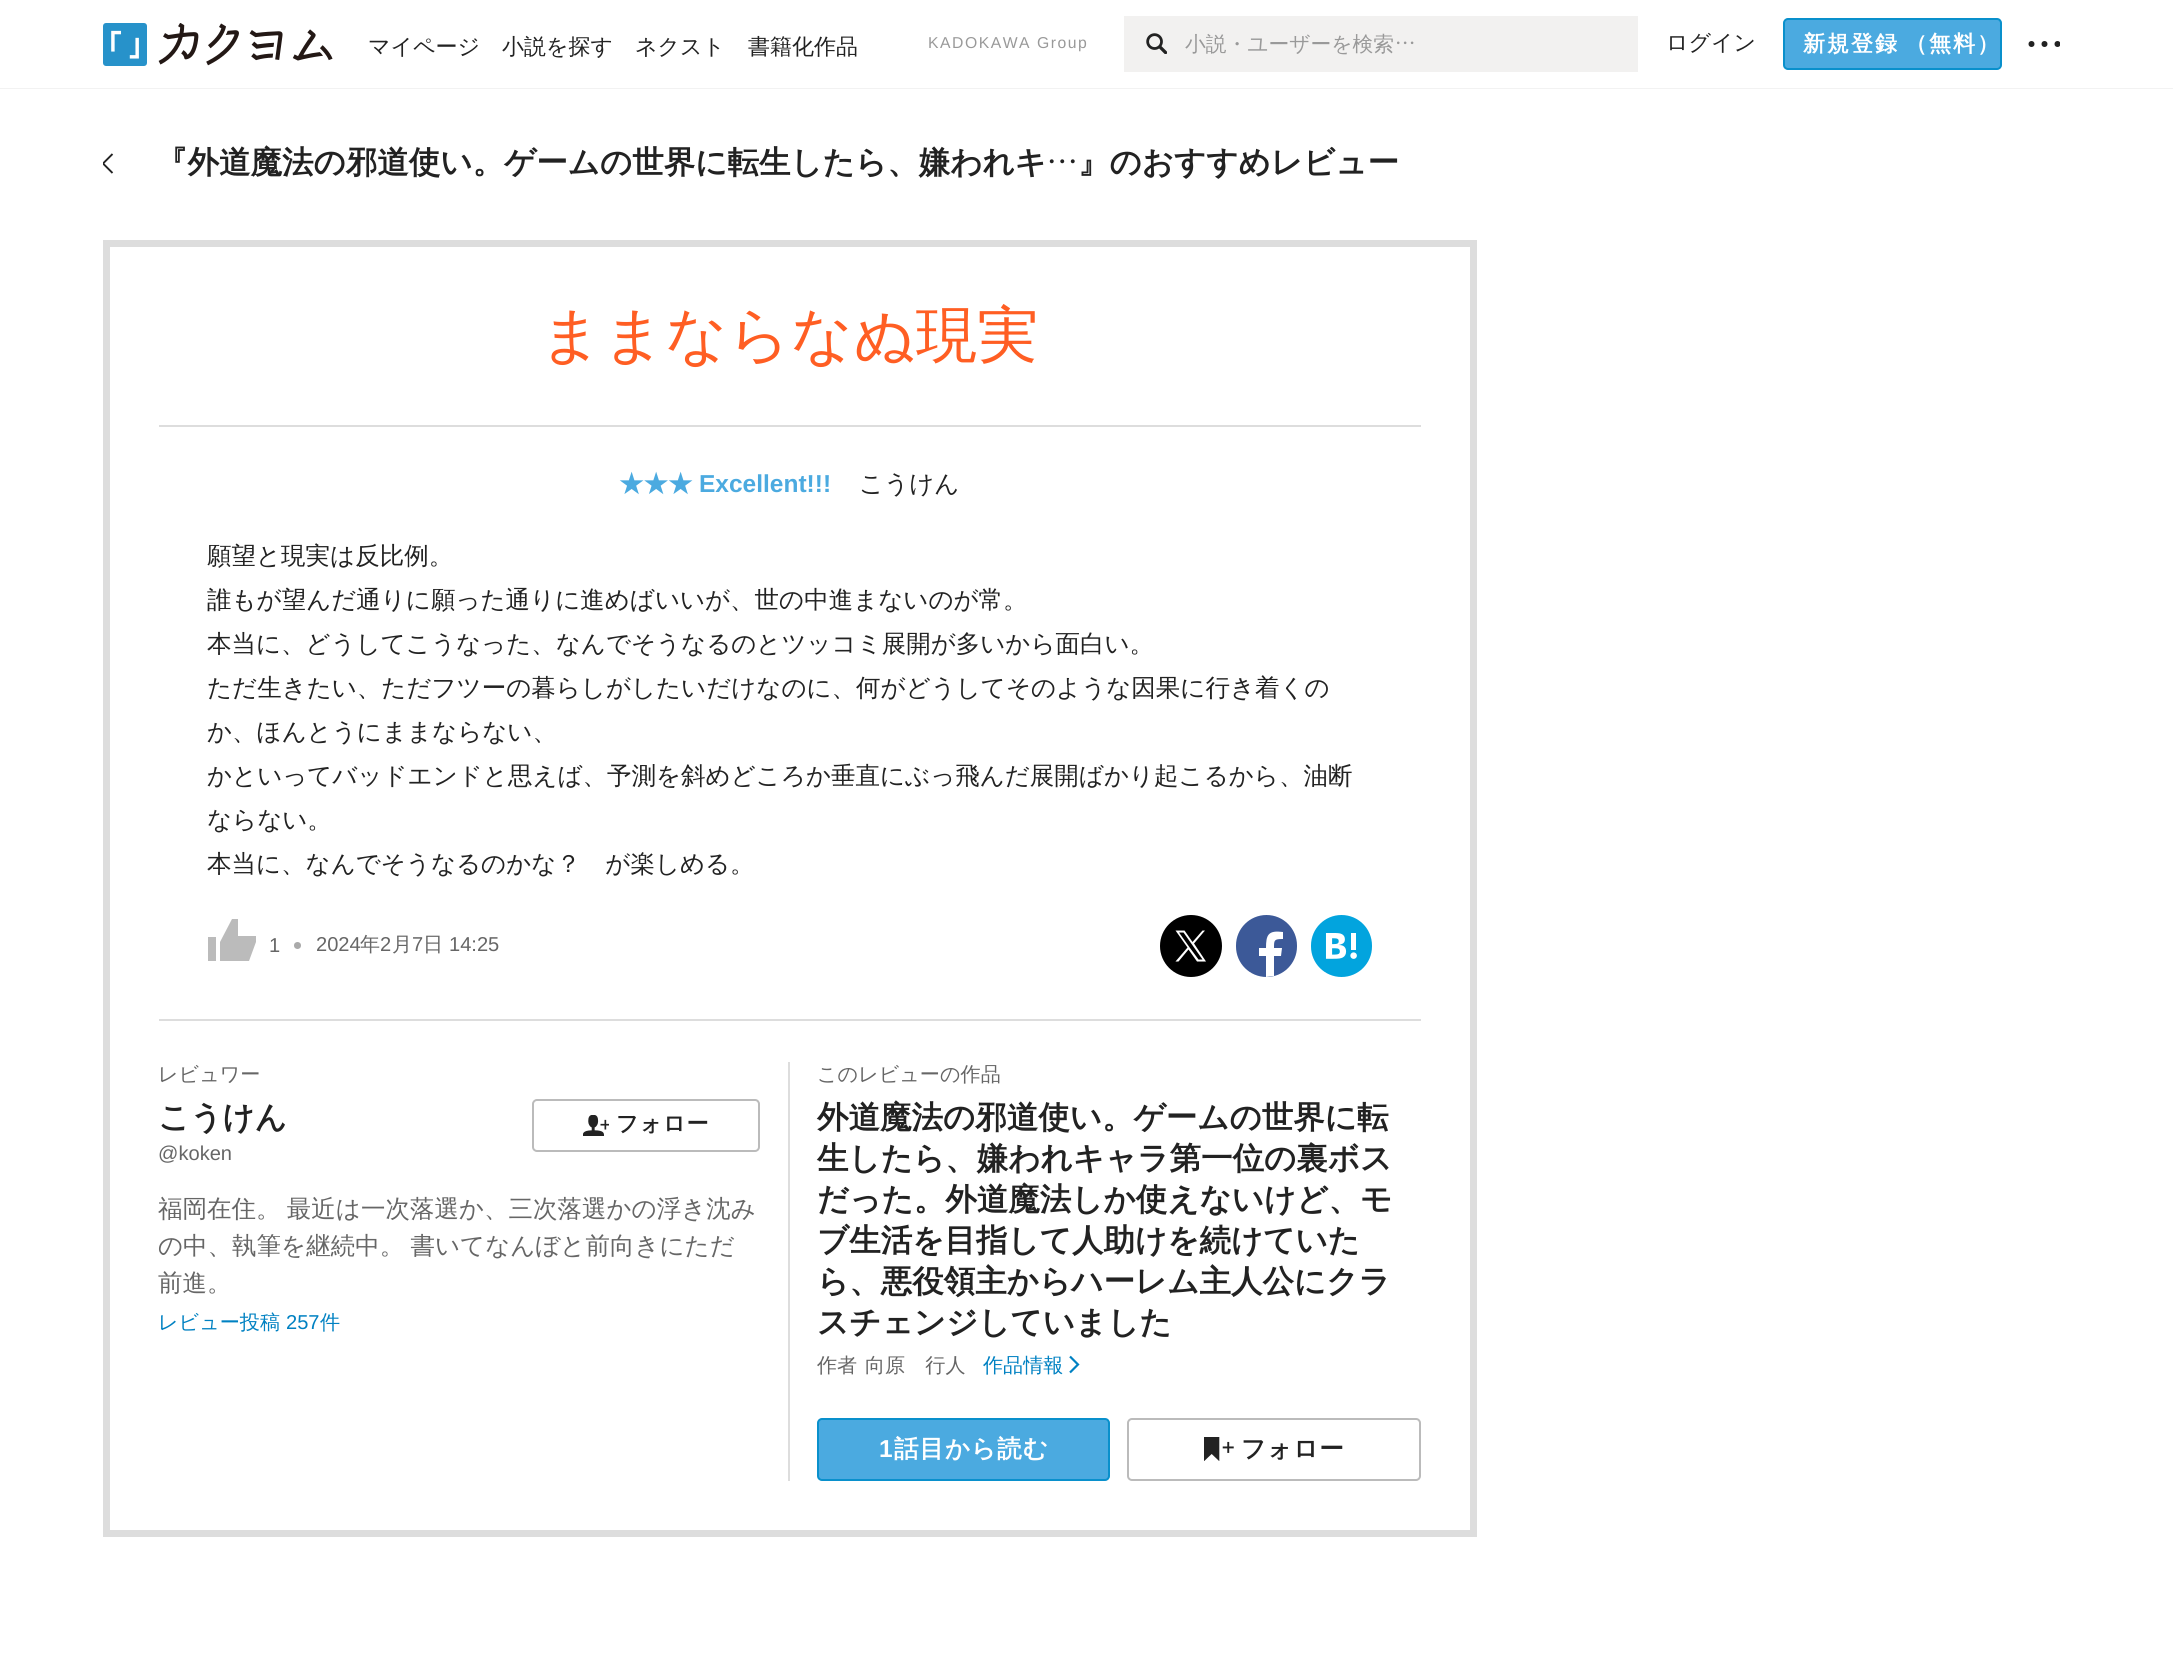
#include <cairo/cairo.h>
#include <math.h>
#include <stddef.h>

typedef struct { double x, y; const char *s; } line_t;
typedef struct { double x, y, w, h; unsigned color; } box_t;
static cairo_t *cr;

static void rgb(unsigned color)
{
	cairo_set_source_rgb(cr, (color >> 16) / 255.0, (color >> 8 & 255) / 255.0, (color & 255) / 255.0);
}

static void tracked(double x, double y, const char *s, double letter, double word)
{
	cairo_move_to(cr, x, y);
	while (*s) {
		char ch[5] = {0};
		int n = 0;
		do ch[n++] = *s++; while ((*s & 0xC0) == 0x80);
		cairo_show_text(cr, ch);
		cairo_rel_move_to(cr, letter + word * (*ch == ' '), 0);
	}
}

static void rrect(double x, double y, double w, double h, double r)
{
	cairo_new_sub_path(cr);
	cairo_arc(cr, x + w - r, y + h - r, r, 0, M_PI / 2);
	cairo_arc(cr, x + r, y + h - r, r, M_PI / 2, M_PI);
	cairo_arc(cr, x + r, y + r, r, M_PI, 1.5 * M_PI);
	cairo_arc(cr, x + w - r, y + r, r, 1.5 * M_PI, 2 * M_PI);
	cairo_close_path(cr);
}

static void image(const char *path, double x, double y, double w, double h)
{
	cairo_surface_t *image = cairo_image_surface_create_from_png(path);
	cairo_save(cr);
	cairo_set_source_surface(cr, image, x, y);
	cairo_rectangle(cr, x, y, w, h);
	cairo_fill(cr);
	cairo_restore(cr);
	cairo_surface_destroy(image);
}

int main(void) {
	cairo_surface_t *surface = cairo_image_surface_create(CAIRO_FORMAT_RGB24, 2173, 1657);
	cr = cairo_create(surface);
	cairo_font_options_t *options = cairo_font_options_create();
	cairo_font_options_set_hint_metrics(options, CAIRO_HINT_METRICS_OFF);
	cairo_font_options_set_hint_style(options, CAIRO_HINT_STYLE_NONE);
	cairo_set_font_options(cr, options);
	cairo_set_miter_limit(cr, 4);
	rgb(0xffffff);
	cairo_paint(cr);
	rgb(0xf2f2f2);
	cairo_new_path(cr);
	cairo_move_to(cr, 0, 88);
	cairo_line_to(cr, 0, 89);
	cairo_line_to(cr, 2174, 89);
	cairo_line_to(cr, 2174, 2);
	cairo_line_to(cr, 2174, 88);
	cairo_close_path(cr);
	cairo_fill(cr);
	image("img/1.png", 103, 23, 230, 43);
	rgb(0xf2f1f0);
	cairo_rectangle(cr, 1124, 16, 514, 56);
	cairo_fill(cr);
	image("img/2.png", 1146, 33, 21, 21);
	image("img/3.png", 1397, 41, 17, 4);
	rgb(0x4baae0);
	rrect(1784, 19, 217, 50, 4);
	cairo_fill_preserve(cr);
	rgb(0x0990cc);
	cairo_stroke(cr);
	rgb(0x222222);
	cairo_arc(cr, 2031.5, 44, 3, 0, 2 * M_PI);
	cairo_fill(cr);
	cairo_arc(cr, 2044.5, 44, 3, 0, 2 * M_PI);
	cairo_fill(cr);
	cairo_save(cr);
	cairo_rectangle(cr, 2028, 28, 32, 32);
	cairo_clip(cr);
	cairo_arc(cr, 2057.5, 44, 3, 0, 2 * M_PI);
	cairo_fill(cr);
	cairo_restore(cr);
	cairo_save(cr);
	cairo_rectangle(cr, 103, 152, 11, 25);
	cairo_clip(cr);
	cairo_new_path(cr);
	cairo_move_to(cr, 112.5, 173);
	cairo_line_to(cr, 103, 163.5);
	cairo_line_to(cr, 112.5, 154);
	cairo_set_line_width(cr, 1.9);
	cairo_stroke(cr);
	cairo_restore(cr);
	image("img/4.png", 1049, 159, 26, 5);
	cairo_rectangle(cr, 106.5, 243.5, 1367, 1290);
	rgb(0xdddddd);
	cairo_set_line_width(cr, 7);
	cairo_stroke(cr);
	{
		static const box_t items[] = {
			{159, 425, 1262, 2, 0xdddddd},
			{159, 1019, 1262, 2, 0xdddddd},
			{208, 937, 8, 24, 0xbbbbbb},
		};
		for (size_t i = 0; i < sizeof items / sizeof *items; i++) {
			rgb(items[i].color);
			cairo_rectangle(cr, items[i].x, items[i].y, items[i].w, items[i].h);
			cairo_fill(cr);
		}
	}
	cairo_new_path(cr);
	cairo_move_to(cr, 256, 942);
	cairo_line_to(cr, 256, 936);
	cairo_line_to(cr, 238, 936);
	cairo_line_to(cr, 238, 919);
	cairo_line_to(cr, 232, 919);
	cairo_line_to(cr, 220, 942);
	cairo_line_to(cr, 220, 961);
	cairo_line_to(cr, 249, 961);
	cairo_close_path(cr);
	cairo_fill(cr);
	rgb(0xaaaaaa);
	cairo_arc(cr, 297.5, 945.5, 3.5, 0, 2 * M_PI);
	cairo_fill(cr);
	rgb(0x000000);
	cairo_arc(cr, 1191, 946, 31, 0, 2 * M_PI);
	cairo_fill(cr);
	rgb(0xffffff);
	cairo_new_path(cr);
	cairo_move_to(cr, 1194, 943.5);
	cairo_line_to(cr, 1205, 930.5);
	cairo_line_to(cr, 1202.5, 930.5);
	cairo_line_to(cr, 1192.5, 942);
	cairo_line_to(cr, 1184.5, 930.5);
	cairo_line_to(cr, 1175.5, 930.5);
	cairo_line_to(cr, 1187.5, 947.5);
	cairo_line_to(cr, 1175.5, 961.5);
	cairo_line_to(cr, 1178.5, 961.5);
	cairo_line_to(cr, 1188.5, 949.5);
	cairo_line_to(cr, 1197, 961.5);
	cairo_line_to(cr, 1206, 961.5);
	cairo_close_path(cr);
	cairo_move_to(cr, 1190, 948);
	cairo_line_to(cr, 1179, 932.5);
	cairo_line_to(cr, 1183.5, 932.5);
	cairo_line_to(cr, 1202.5, 959.5);
	cairo_line_to(cr, 1198.5, 959.5);
	cairo_close_path(cr);
	cairo_fill(cr);
	rgb(0x3c5998);
	rrect(1236, 915, 61, 62, 30.5);
	cairo_fill(cr);
	rgb(0xffffff);
	cairo_new_path(cr);
	cairo_move_to(cr, 1274, 976);
	cairo_line_to(cr, 1266, 977);
	cairo_line_to(cr, 1266, 956);
	cairo_line_to(cr, 1259, 956);
	cairo_line_to(cr, 1259, 948);
	cairo_line_to(cr, 1266, 948);
	cairo_curve_to(cr, 1266, 935, 1268, 930, 1283, 932);
	cairo_line_to(cr, 1283, 939);
	cairo_curve_to(cr, 1274, 939, 1274, 940, 1274, 948);
	cairo_line_to(cr, 1282, 948);
	cairo_line_to(cr, 1281, 956);
	cairo_line_to(cr, 1274, 956);
	cairo_close_path(cr);
	cairo_fill(cr);
	image("img/5.png", 1311, 915, 61, 62);
	rgb(0xdddddd);
	cairo_rectangle(cr, 788, 1062, 2, 419);
	cairo_fill(cr);
	rrect(533, 1100, 226, 51, 4);
	rgb(0xbbbbbb);
	cairo_set_line_width(cr, 2);
	cairo_stroke(cr);
	image("img/6.png", 583, 1115, 26, 21);
	cairo_new_path(cr);
	cairo_move_to(cr, 1070, 1356.5);
	cairo_line_to(cr, 1078, 1364.5);
	cairo_line_to(cr, 1070, 1372.5);
	rgb(0x0081c2);
	cairo_set_line_width(cr, 2.2);
	cairo_stroke(cr);
	rgb(0x4baae0);
	rrect(818, 1419, 291, 61, 4);
	cairo_fill_preserve(cr);
	rgb(0x0990cc);
	cairo_set_line_width(cr, 2);
	cairo_stroke(cr);
	rrect(1128, 1419, 292, 61, 4);
	rgb(0xbbbbbb);
	cairo_stroke(cr);
	image("img/7.png", 1204, 1437, 30, 24);
	cairo_select_font_face(cr, "WenQuanYi Zen Hei Medium", CAIRO_FONT_SLANT_NORMAL, CAIRO_FONT_WEIGHT_NORMAL);
	cairo_set_font_size(cr, 22);
	rgb(0x222222);
	{
		static const line_t items[] = {
			{368, 54, "マイページ"},
			{502, 54, "小説を探す"},
			{635, 54, "ネクスト"},
			{748, 54, "書籍化作品"},
		};
		for (size_t i = 0; i < sizeof items / sizeof *items; i++) {
			cairo_move_to(cr, items[i].x, items[i].y);
			cairo_show_text(cr, items[i].s);
		}
	}
	cairo_select_font_face(cr, "Liberation Sans", CAIRO_FONT_SLANT_NORMAL, CAIRO_FONT_WEIGHT_NORMAL);
	cairo_set_font_size(cr, 15.75);
	rgb(0x999999);
	tracked(928, 48, "KADOKAWA Group", 1.5, 0);
	cairo_select_font_face(cr, "WenQuanYi Zen Hei Medium", CAIRO_FONT_SLANT_NORMAL, CAIRO_FONT_WEIGHT_NORMAL);
	cairo_set_font_size(cr, 20.75);
	cairo_move_to(cr, 1185, 51);
	cairo_show_text(cr, "小説・ユーザーを検索");
	cairo_set_font_size(cr, 22);
	rgb(0x222222);
	cairo_move_to(cr, 1666, 50);
	cairo_show_text(cr, "ログイン");
	cairo_select_font_face(cr, "WenQuanYi Zen Hei", CAIRO_FONT_SLANT_NORMAL, CAIRO_FONT_WEIGHT_BOLD);
	rgb(0xffffff);
	tracked(1803, 51, "新規登録", 2, 0);
	tracked(1905, 51, "（無料）", 2, 0);
	cairo_set_font_size(cr, 31.5);
	rgb(0x222222);
	cairo_move_to(cr, 156, 173);
	cairo_show_text(cr, "『外道魔法の邪道使い。ゲームの世界に転生したら、嫌われキ");
	cairo_move_to(cr, 1078, 173);
	cairo_show_text(cr, "』のおすすめレビュー");
	cairo_select_font_face(cr, "WenQuanYi Zen Hei Medium", CAIRO_FONT_SLANT_NORMAL, CAIRO_FONT_WEIGHT_NORMAL);
	cairo_set_font_size(cr, 61.25);
	rgb(0xff5e23);
	cairo_move_to(cr, 540, 356);
	cairo_show_text(cr, "ままならなぬ現実");
	cairo_select_font_face(cr, "WenQuanYi Zen Hei", CAIRO_FONT_SLANT_NORMAL, CAIRO_FONT_WEIGHT_BOLD);
	cairo_set_font_size(cr, 24.5);
	rgb(0x4baae0);
	cairo_move_to(cr, 619, 492);
	cairo_show_text(cr, "★★★");
	cairo_select_font_face(cr, "Liberation Sans", CAIRO_FONT_SLANT_NORMAL, CAIRO_FONT_WEIGHT_BOLD);
	cairo_move_to(cr, 699, 492);
	cairo_show_text(cr, "Excellent!!!");
	cairo_select_font_face(cr, "WenQuanYi Zen Hei Medium", CAIRO_FONT_SLANT_NORMAL, CAIRO_FONT_WEIGHT_NORMAL);
	rgb(0x222222);
	{
		static const line_t items[] = {
			{859, 492, "こうけん"},
			{207, 564, "願望と現実は反比例。"},
			{207, 608, "誰もが望んだ通りに願った通りに進めばいいが、世の中進まないのが常。"},
			{207, 652, "本当に、どうしてこうなった、なんでそうなるのとツッコミ展開が多いから面白い。"},
			{207, 696, "ただ生きたい、ただフツーの暮らしがしたいだけなのに、何がどうしてそのような因果に行き着くの"},
			{207, 740, "か、ほんとうにままならない、"},
			{207, 784, "かといってバッドエンドと思えば、予測を斜めどころか垂直にぶっ飛んだ展開ばかり起こるから、油断"},
			{207, 828, "ならない。"},
			{207, 872, "本当に、なんでそうなるのかな？　が楽しめる。"},
		};
		for (size_t i = 0; i < sizeof items / sizeof *items; i++) {
			cairo_move_to(cr, items[i].x, items[i].y);
			cairo_show_text(cr, items[i].s);
		}
	}
	cairo_select_font_face(cr, "Liberation Sans", CAIRO_FONT_SLANT_NORMAL, CAIRO_FONT_WEIGHT_NORMAL);
	cairo_set_font_size(cr, 20.1);
	rgb(0x666666);
	cairo_move_to(cr, 269, 952);
	cairo_show_text(cr, "1");
	cairo_move_to(cr, 316, 951);
	cairo_show_text(cr, "2024");
	cairo_select_font_face(cr, "WenQuanYi Zen Hei Medium", CAIRO_FONT_SLANT_NORMAL, CAIRO_FONT_WEIGHT_NORMAL);
	cairo_move_to(cr, 360, 951);
	cairo_show_text(cr, "年");
	cairo_select_font_face(cr, "Liberation Sans", CAIRO_FONT_SLANT_NORMAL, CAIRO_FONT_WEIGHT_NORMAL);
	cairo_move_to(cr, 380, 951);
	cairo_show_text(cr, "2");
	cairo_select_font_face(cr, "WenQuanYi Zen Hei Medium", CAIRO_FONT_SLANT_NORMAL, CAIRO_FONT_WEIGHT_NORMAL);
	cairo_move_to(cr, 392, 951);
	cairo_show_text(cr, "月");
	cairo_select_font_face(cr, "Liberation Sans", CAIRO_FONT_SLANT_NORMAL, CAIRO_FONT_WEIGHT_NORMAL);
	cairo_move_to(cr, 412, 951);
	cairo_show_text(cr, "7");
	cairo_select_font_face(cr, "WenQuanYi Zen Hei Medium", CAIRO_FONT_SLANT_NORMAL, CAIRO_FONT_WEIGHT_NORMAL);
	cairo_move_to(cr, 423, 951);
	cairo_show_text(cr, "日");
	cairo_select_font_face(cr, "Liberation Sans", CAIRO_FONT_SLANT_NORMAL, CAIRO_FONT_WEIGHT_NORMAL);
	cairo_move_to(cr, 449, 951);
	cairo_show_text(cr, "14:25");
	cairo_select_font_face(cr, "WenQuanYi Zen Hei Medium", CAIRO_FONT_SLANT_NORMAL, CAIRO_FONT_WEIGHT_NORMAL);
	cairo_move_to(cr, 158, 1081);
	cairo_show_text(cr, "レビュワー");
	cairo_select_font_face(cr, "WenQuanYi Zen Hei", CAIRO_FONT_SLANT_NORMAL, CAIRO_FONT_WEIGHT_BOLD);
	cairo_set_font_size(cr, 31.5);
	rgb(0x222222);
	cairo_move_to(cr, 158, 1128);
	cairo_show_text(cr, "こうけん");
	cairo_select_font_face(cr, "Liberation Sans", CAIRO_FONT_SLANT_NORMAL, CAIRO_FONT_WEIGHT_NORMAL);
	cairo_set_font_size(cr, 20.1);
	rgb(0x666666);
	cairo_move_to(cr, 158, 1160);
	cairo_show_text(cr, "@koken");
	cairo_select_font_face(cr, "WenQuanYi Zen Hei", CAIRO_FONT_SLANT_NORMAL, CAIRO_FONT_WEIGHT_BOLD);
	cairo_set_font_size(cr, 22);
	rgb(0x222222);
	tracked(616, 1131, "フォロー", 1, 0);
	cairo_select_font_face(cr, "WenQuanYi Zen Hei Medium", CAIRO_FONT_SLANT_NORMAL, CAIRO_FONT_WEIGHT_NORMAL);
	cairo_set_font_size(cr, 24.5);
	rgb(0x666666);
	tracked(158, 1217, "福岡在住。 最近は一次落選か、三次落選かの浮き沈み", 0, -1);
	tracked(158, 1254, "の中、執筆を継続中。 書いてなんぼと前向きにただ", 0, -1);
	cairo_move_to(cr, 158, 1291);
	cairo_show_text(cr, "前進。");
	cairo_set_font_size(cr, 20.1);
	rgb(0x0081c2);
	cairo_move_to(cr, 158, 1329);
	cairo_show_text(cr, "レビュー投稿");
	cairo_select_font_face(cr, "Liberation Sans", CAIRO_FONT_SLANT_NORMAL, CAIRO_FONT_WEIGHT_NORMAL);
	cairo_move_to(cr, 286, 1329);
	cairo_show_text(cr, "257");
	cairo_select_font_face(cr, "WenQuanYi Zen Hei Medium", CAIRO_FONT_SLANT_NORMAL, CAIRO_FONT_WEIGHT_NORMAL);
	cairo_move_to(cr, 320, 1329);
	cairo_show_text(cr, "件");
	rgb(0x666666);
	cairo_move_to(cr, 817, 1081);
	cairo_show_text(cr, "このレビューの作品");
	cairo_select_font_face(cr, "WenQuanYi Zen Hei", CAIRO_FONT_SLANT_NORMAL, CAIRO_FONT_WEIGHT_BOLD);
	cairo_set_font_size(cr, 31.5);
	rgb(0x222222);
	{
		static const line_t items[] = {
			{817, 1128, "外道魔法の邪道使い。ゲームの世界に転"},
			{817, 1169, "生したら、嫌われキャラ第一位の裏ボス"},
			{817, 1210, "だった。外道魔法しか使えないけど、モ"},
			{817, 1251, "ブ生活を目指して人助けを続けていた"},
			{817, 1292, "ら、悪役領主からハーレム主人公にクラ"},
			{817, 1333, "スチェンジしていました"},
		};
		for (size_t i = 0; i < sizeof items / sizeof *items; i++) {
			cairo_move_to(cr, items[i].x, items[i].y);
			cairo_show_text(cr, items[i].s);
		}
	}
	cairo_select_font_face(cr, "WenQuanYi Zen Hei Medium", CAIRO_FONT_SLANT_NORMAL, CAIRO_FONT_WEIGHT_NORMAL);
	cairo_set_font_size(cr, 20.1);
	rgb(0x666666);
	cairo_move_to(cr, 817, 1372);
	cairo_show_text(cr, "作者");
	cairo_move_to(cr, 865, 1372);
	cairo_show_text(cr, "向原　行人");
	rgb(0x0081c2);
	cairo_move_to(cr, 983, 1372);
	cairo_show_text(cr, "作品情報");
	cairo_select_font_face(cr, "Liberation Sans", CAIRO_FONT_SLANT_NORMAL, CAIRO_FONT_WEIGHT_BOLD);
	cairo_set_font_size(cr, 24.5);
	rgb(0xffffff);
	tracked(879, 1457, "1", 1, 0);
	cairo_select_font_face(cr, "WenQuanYi Zen Hei", CAIRO_FONT_SLANT_NORMAL, CAIRO_FONT_WEIGHT_BOLD);
	tracked(894, 1457, "話目から読む", 1, 0);
	rgb(0x222222);
	tracked(1241, 1457, "フォロー", 1, 0);
	cairo_surface_write_to_png(surface, "page.png");
	cairo_font_options_destroy(options);
	cairo_destroy(cr);
	cairo_surface_destroy(surface);
	return 0;
}
